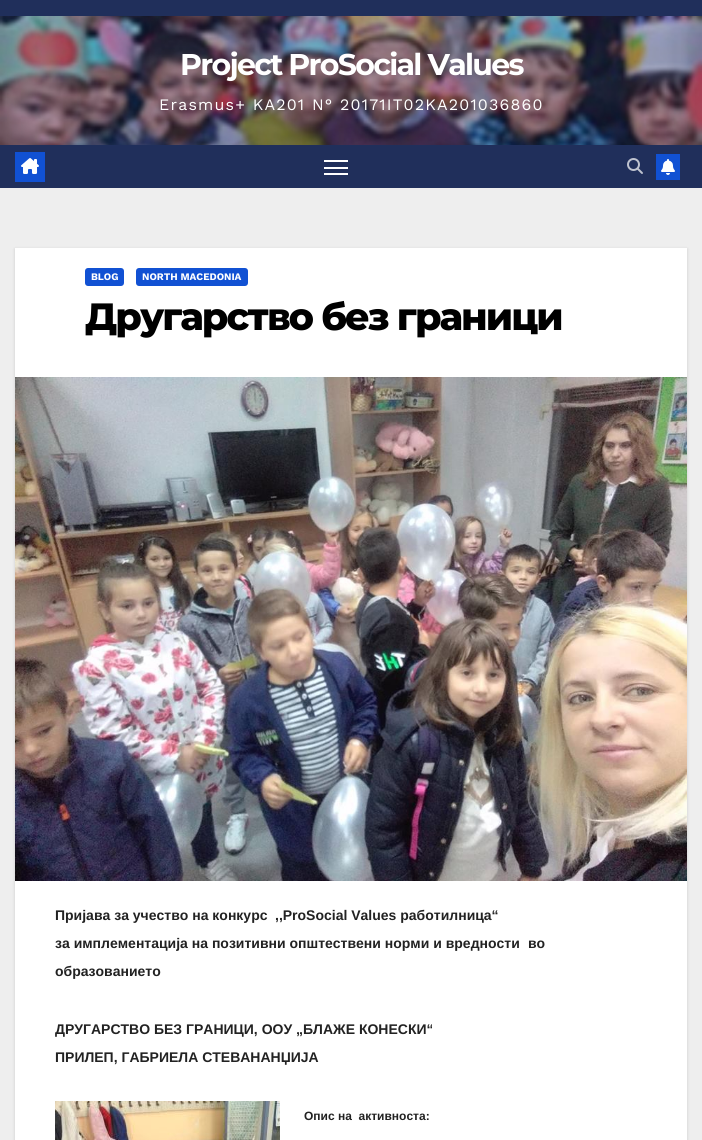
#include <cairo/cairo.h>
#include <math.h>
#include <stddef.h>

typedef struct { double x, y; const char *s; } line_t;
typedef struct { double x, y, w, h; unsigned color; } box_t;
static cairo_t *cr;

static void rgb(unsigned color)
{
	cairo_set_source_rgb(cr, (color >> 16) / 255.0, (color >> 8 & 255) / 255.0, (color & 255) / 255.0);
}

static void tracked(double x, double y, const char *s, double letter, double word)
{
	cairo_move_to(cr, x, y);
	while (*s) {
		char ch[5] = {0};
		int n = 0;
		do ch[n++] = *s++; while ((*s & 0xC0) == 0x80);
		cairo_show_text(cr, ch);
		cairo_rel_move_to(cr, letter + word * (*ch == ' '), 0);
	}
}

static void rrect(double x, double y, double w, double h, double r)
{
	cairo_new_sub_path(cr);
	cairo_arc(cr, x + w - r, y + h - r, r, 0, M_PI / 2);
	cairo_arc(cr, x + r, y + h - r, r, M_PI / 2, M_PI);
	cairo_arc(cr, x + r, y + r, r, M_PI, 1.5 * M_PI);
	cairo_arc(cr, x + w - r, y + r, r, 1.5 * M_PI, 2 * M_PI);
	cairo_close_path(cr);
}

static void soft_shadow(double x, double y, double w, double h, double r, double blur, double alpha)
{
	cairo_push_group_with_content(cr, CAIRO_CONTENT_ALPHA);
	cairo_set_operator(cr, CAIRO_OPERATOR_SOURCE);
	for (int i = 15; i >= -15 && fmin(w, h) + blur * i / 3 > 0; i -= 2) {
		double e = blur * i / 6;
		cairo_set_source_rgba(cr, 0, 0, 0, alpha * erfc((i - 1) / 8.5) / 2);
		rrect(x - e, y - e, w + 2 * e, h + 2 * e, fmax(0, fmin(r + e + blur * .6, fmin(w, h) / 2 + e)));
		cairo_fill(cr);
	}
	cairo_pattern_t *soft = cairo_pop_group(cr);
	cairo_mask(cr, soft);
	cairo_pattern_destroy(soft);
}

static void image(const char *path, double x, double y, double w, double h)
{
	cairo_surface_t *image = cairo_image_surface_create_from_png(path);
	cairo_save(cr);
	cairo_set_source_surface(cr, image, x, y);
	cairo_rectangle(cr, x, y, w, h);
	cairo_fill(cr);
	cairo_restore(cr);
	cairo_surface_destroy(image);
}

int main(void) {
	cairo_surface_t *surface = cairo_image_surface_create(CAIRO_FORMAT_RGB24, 702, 1140);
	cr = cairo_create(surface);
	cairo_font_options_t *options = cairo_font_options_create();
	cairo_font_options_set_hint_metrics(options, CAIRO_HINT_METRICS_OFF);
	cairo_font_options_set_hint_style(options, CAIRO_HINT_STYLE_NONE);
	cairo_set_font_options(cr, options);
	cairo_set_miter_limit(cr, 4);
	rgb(0xeeeeee);
	cairo_paint(cr);
	rgb(0x202f5b);
	cairo_rectangle(cr, 0, 0, 702, 16);
	cairo_fill(cr);
	image("img/1.png", 0, 16, 702, 129);
	cairo_rectangle(cr, 0, 145, 702, 43);
	cairo_fill(cr);
	rgb(0x1151d3);
	cairo_rectangle(cr, 15, 152, 30, 30);
	cairo_fill(cr);
	image("img/2.png", 21, 158, 18, 16);
	{
		static const box_t items[] = {
			{324, 160, 24, 2, 0xffffff},
			{324, 167, 24, 2, 0xffffff},
			{324, 173, 24, 2, 0xffffff},
		};
		for (size_t i = 0; i < sizeof items / sizeof *items; i++) {
			rgb(items[i].color);
			cairo_rectangle(cr, items[i].x, items[i].y, items[i].w, items[i].h);
			cairo_fill(cr);
		}
	}
	image("img/3.png", 627, 158, 16, 16);
	rgb(0x1151d3);
	cairo_rectangle(cr, 656, 154, 24, 26);
	cairo_fill(cr);
	image("img/4.png", 661, 159, 14, 16);
	rgb(0x000000);
	soft_shadow(15, 249, 672, 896, 0, 1.5, 0.15);
	rgb(0xffffff);
	cairo_rectangle(cr, 15, 248, 672, 892);
	cairo_fill(cr);
	rgb(0x1151d3);
	rrect(85, 268, 39, 18, 3);
	cairo_fill(cr);
	rrect(136, 268, 112, 18, 3);
	cairo_fill(cr);
	image("img/5.png", 15, 377, 672, 504);
	image("img/6.png", 55, 1101, 225, 39);
	cairo_select_font_face(cr, "Montserrat", CAIRO_FONT_SLANT_NORMAL, CAIRO_FONT_WEIGHT_BOLD);
	cairo_set_font_size(cr, 30);
	rgb(0xffffff);
	tracked(180, 75, "Project ProSocial Values", -1.7, 0);
	cairo_select_font_face(cr, "Work Sans", CAIRO_FONT_SLANT_NORMAL, CAIRO_FONT_WEIGHT_NORMAL);
	cairo_set_font_size(cr, 16);
	tracked(159, 110, "Erasmus+ KA201 N° 20171IT02KA201036860", 1.2, 0);
	cairo_select_font_face(cr, "Work Sans", CAIRO_FONT_SLANT_NORMAL, CAIRO_FONT_WEIGHT_BOLD);
	cairo_set_font_size(cr, 10);
	cairo_move_to(cr, 91, 280);
	cairo_show_text(cr, "BLOG");
	cairo_move_to(cr, 142, 280);
	cairo_show_text(cr, "NORTH MACEDONIA");
	cairo_select_font_face(cr, "Montserrat ExtraBold", CAIRO_FONT_SLANT_NORMAL, CAIRO_FONT_WEIGHT_NORMAL);
	cairo_set_font_size(cr, 38);
	rgb(0x000000);
	tracked(85, 330, "Другарство без граници", -1.9, 0);
	cairo_select_font_face(cr, "Liberation Sans", CAIRO_FONT_SLANT_NORMAL, CAIRO_FONT_WEIGHT_BOLD);
	cairo_set_font_size(cr, 14);
	rgb(0x222222);
	{
		static const line_t items[] = {
			{55, 920, "Пријава за учество на конкурс"},
			{275, 920, ",,ProSocial Values работилница“"},
			{55, 948, "за имплементација на позитивни општествени норми и вредности"},
			{528, 948, "во"},
			{55, 976, "образованието"},
			{55, 1034, "ДРУГАРСТВО БЕЗ ГРАНИЦИ, ООУ „БЛАЖЕ КОНЕСКИ“"},
			{55, 1062, "ПРИЛЕП, ГАБРИЕЛА СТЕВАНАНЏИЈА"},
		};
		for (size_t i = 0; i < sizeof items / sizeof *items; i++) {
			cairo_move_to(cr, items[i].x, items[i].y);
			cairo_show_text(cr, items[i].s);
		}
	}
	cairo_set_font_size(cr, 12);
	cairo_move_to(cr, 304, 1120);
	cairo_show_text(cr, "Опис на  активноста:");
	cairo_surface_write_to_png(surface, "page.png");
	cairo_font_options_destroy(options);
	cairo_destroy(cr);
	cairo_surface_destroy(surface);
	return 0;
}
